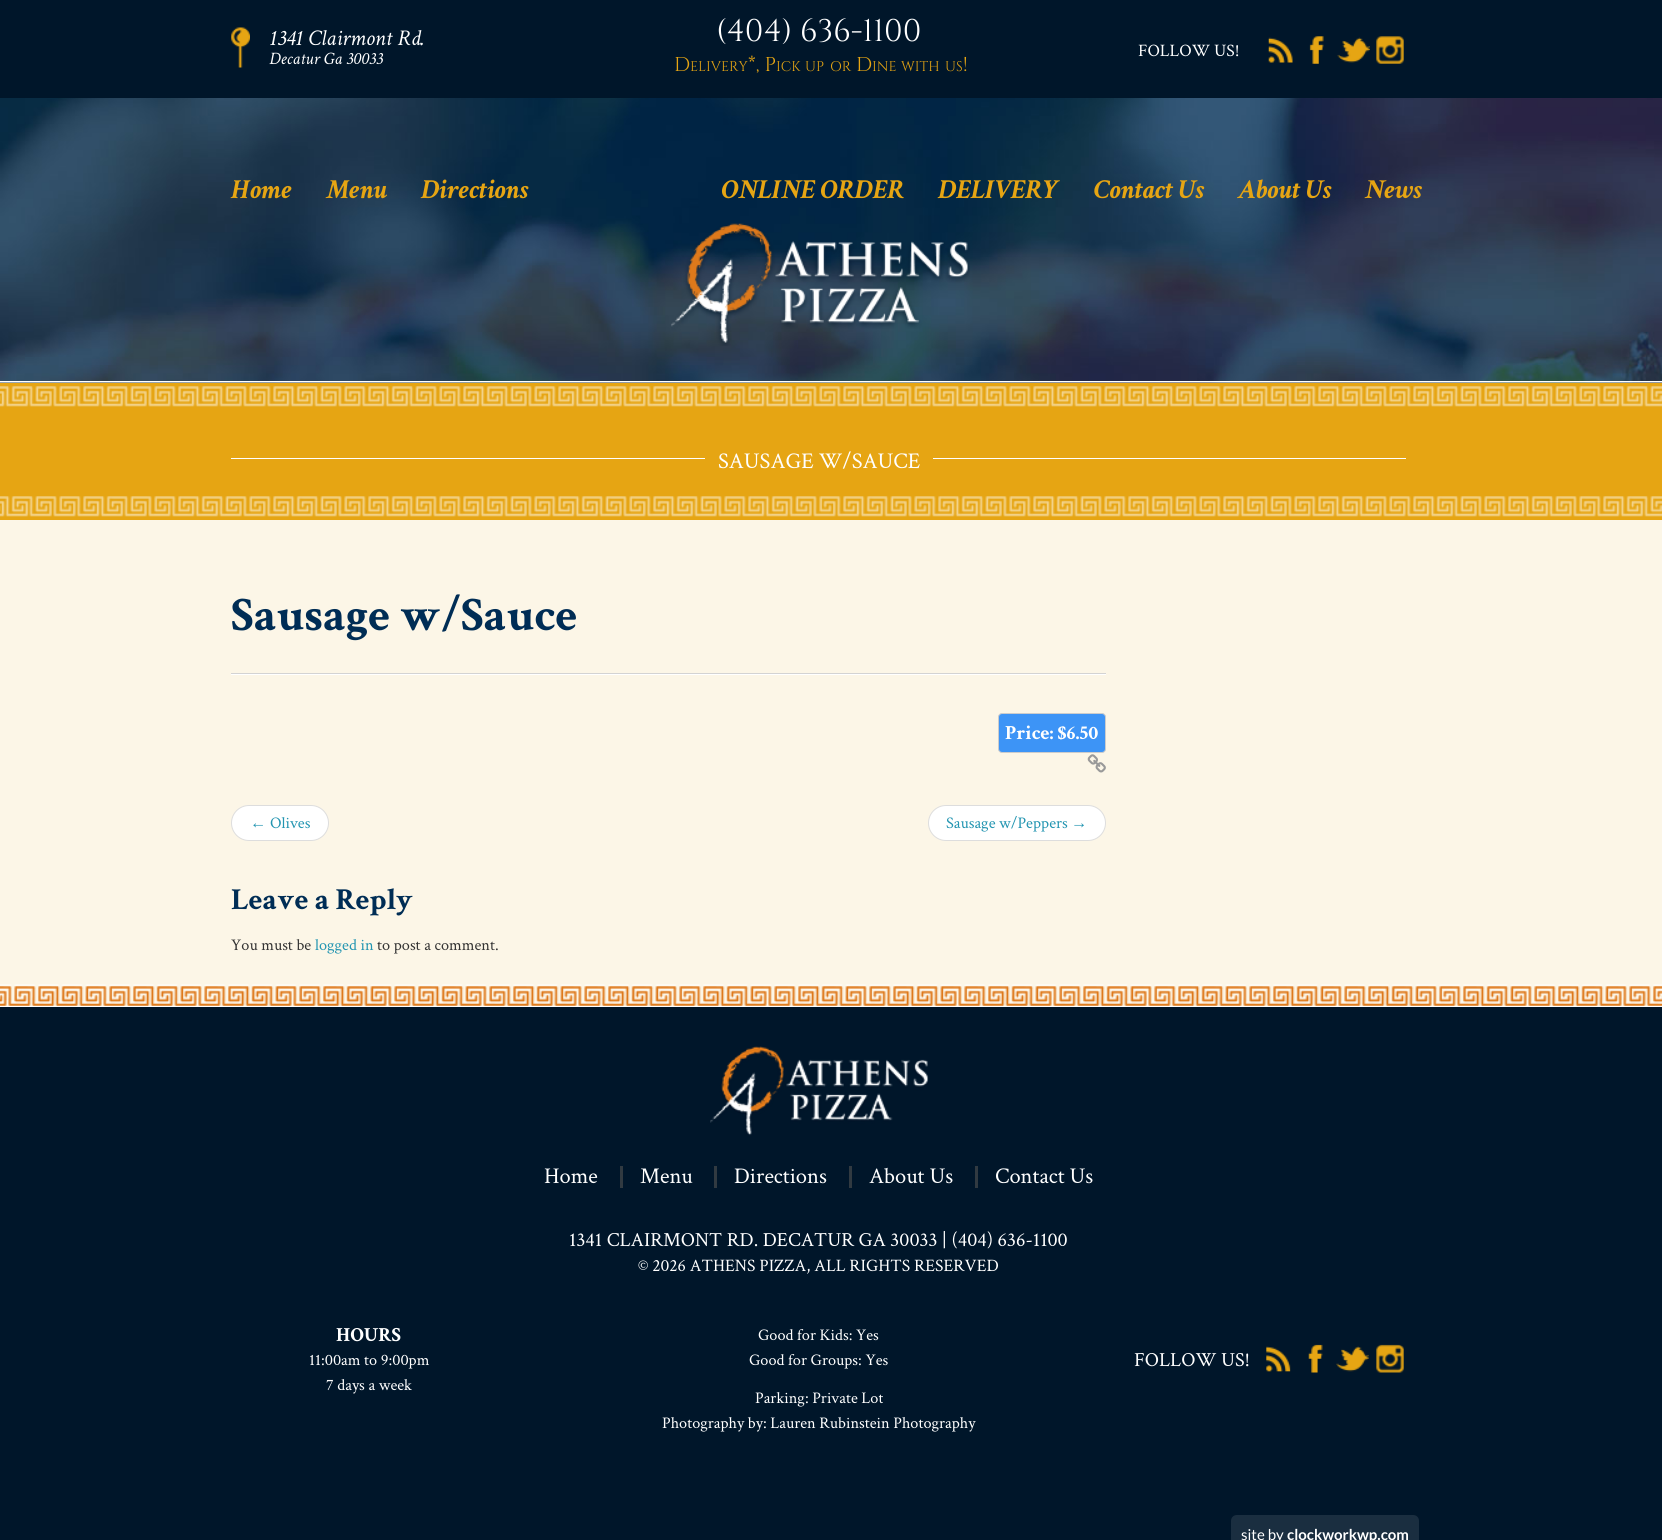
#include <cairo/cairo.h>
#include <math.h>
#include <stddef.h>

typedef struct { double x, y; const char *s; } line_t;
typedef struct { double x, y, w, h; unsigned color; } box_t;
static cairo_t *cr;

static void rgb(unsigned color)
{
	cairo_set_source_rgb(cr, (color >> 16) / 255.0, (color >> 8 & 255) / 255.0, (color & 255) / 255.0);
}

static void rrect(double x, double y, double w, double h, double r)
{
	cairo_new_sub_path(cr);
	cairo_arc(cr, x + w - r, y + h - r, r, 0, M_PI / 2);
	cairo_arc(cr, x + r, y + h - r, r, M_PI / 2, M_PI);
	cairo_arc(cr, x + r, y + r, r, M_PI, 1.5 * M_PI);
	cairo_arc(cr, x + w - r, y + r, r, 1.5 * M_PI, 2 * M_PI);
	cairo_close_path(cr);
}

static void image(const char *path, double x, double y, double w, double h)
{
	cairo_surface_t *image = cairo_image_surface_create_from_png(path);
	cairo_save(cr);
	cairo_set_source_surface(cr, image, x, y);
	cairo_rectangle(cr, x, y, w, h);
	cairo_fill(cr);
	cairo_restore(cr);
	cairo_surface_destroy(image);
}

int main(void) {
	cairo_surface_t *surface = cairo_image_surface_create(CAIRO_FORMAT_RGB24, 1662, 1540);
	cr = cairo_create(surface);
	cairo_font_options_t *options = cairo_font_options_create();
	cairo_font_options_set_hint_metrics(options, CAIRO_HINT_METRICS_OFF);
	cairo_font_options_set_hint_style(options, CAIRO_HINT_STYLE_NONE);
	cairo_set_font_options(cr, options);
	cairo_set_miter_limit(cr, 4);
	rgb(0xffffff);
	cairo_paint(cr);
	rgb(0x00162a);
	cairo_rectangle(cr, 0, 0, 1662, 98);
	cairo_fill(cr);
	image("img/1.png", 231, 27, 19, 41);
	image("img/2.png", 1268, 37, 25, 26);
	image("img/3.png", 1309, 36, 15, 28);
	image("img/4.png", 1337, 37, 33, 26);
	image("img/5.png", 1376, 36, 28, 28);
	image("img/6.png", 0, 98, 1662, 285);
	rgb(0xffffff);
	cairo_rectangle(cr, 0, 381, 1662, 1);
	cairo_fill(cr);
	image("img/7.png", 671, 223, 299, 123);
	rgb(0xe6a513);
	cairo_rectangle(cr, 0, 383, 1662, 137);
	cairo_fill(cr);
	image("img/8.png", 0, 386, 1662, 131);
	{
		static const box_t items[] = {
			{231, 458, 1175, 1, 0xffffff},
			{705, 458, 228, 1, 0xe6a513},
			{0, 520, 1662, 486, 0xfcf6e7},
		};
		for (size_t i = 0; i < sizeof items / sizeof *items; i++) {
			rgb(items[i].color);
			cairo_rectangle(cr, items[i].x, items[i].y, items[i].w, items[i].h);
			cairo_fill(cr);
		}
	}
	image("img/9.png", 0, 984, 1662, 22);
	rgb(0xffffff);
	cairo_rectangle(cr, 231, 674, 875, 1);
	cairo_fill(cr);
	rgb(0xd3d3d3);
	cairo_rectangle(cr, 231, 673, 875, 1);
	cairo_fill(cr);
	rgb(0x3d94f6);
	rrect(998.5, 713.5, 107, 39, 3.5);
	cairo_fill_preserve(cr);
	rgb(0xcccccc);
	cairo_set_line_width(cr, 1);
	cairo_stroke(cr);
	image("img/10.png", 1087, 754, 19, 19);
	rgb(0xffffff);
	rrect(231.5, 805.5, 97, 35, 17.5);
	cairo_fill_preserve(cr);
	rgb(0xdddddd);
	cairo_stroke(cr);
	rgb(0xffffff);
	rrect(928.5, 805.5, 177, 35, 17.5);
	cairo_fill_preserve(cr);
	rgb(0xdddddd);
	cairo_stroke(cr);
	rgb(0x00162a);
	cairo_rectangle(cr, 0, 1007, 1662, 533);
	cairo_fill(cr);
	image("img/11.png", 710, 1046, 219, 90);
	{
		static const box_t items[] = {
			{620, 1166, 3, 22, 0x313a41},
			{714, 1166, 3, 22, 0x313a41},
			{849, 1166, 3, 22, 0x313a41},
			{975, 1166, 3, 22, 0x313a41},
		};
		for (size_t i = 0; i < sizeof items / sizeof *items; i++) {
			rgb(items[i].color);
			cairo_rectangle(cr, items[i].x, items[i].y, items[i].w, items[i].h);
			cairo_fill(cr);
		}
	}
	image("img/12.png", 1266, 1346, 25, 26);
	image("img/13.png", 1308, 1344, 15, 29);
	image("img/14.png", 1336, 1346, 33, 26);
	image("img/15.png", 1376, 1344, 28, 29);
	rgb(0x1a2e40);
	cairo_new_path(cr);
	cairo_move_to(cr, 1237, 1515);
	cairo_line_to(cr, 1413, 1515);
	cairo_curve_to(cr, 1416.5, 1515, 1419, 1517.5, 1419, 1521);
	cairo_line_to(cr, 1419, 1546);
	cairo_line_to(cr, 1231, 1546);
	cairo_line_to(cr, 1231, 1521);
	cairo_curve_to(cr, 1231, 1517.5, 1233.5, 1515, 1237, 1515);
	cairo_close_path(cr);
	cairo_fill(cr);
	cairo_select_font_face(cr, "Crimson Text", CAIRO_FONT_SLANT_ITALIC, CAIRO_FONT_WEIGHT_NORMAL);
	cairo_set_font_size(cr, 22.5);
	rgb(0xffffff);
	cairo_move_to(cr, 269, 45);
	cairo_show_text(cr, "1341 Clairmont Rd.");
	cairo_set_font_size(cr, 17.5);
	cairo_move_to(cr, 269, 64);
	cairo_show_text(cr, "Decatur Ga 30033");
	cairo_select_font_face(cr, "Cinzel", CAIRO_FONT_SLANT_NORMAL, CAIRO_FONT_WEIGHT_NORMAL);
	cairo_set_font_size(cr, 31.25);
	cairo_move_to(cr, 716, 41);
	cairo_show_text(cr, "(404) 636-1100");
	cairo_set_font_size(cr, 20);
	rgb(0xe6a513);
	cairo_move_to(cr, 674, 71);
	cairo_show_text(cr, "D");
	cairo_set_font_size(cr, 14);
	cairo_move_to(cr, 690, 71);
	cairo_show_text(cr, "ELIVERY");
	cairo_set_font_size(cr, 20);
	cairo_move_to(cr, 748, 71);
	cairo_show_text(cr, "*, P");
	cairo_set_font_size(cr, 14);
	{
		static const line_t items[] = {
			{776, 71, "ICK"},
			{805, 71, "UP"},
			{830, 71, "OR"},
		};
		for (size_t i = 0; i < sizeof items / sizeof *items; i++) {
			cairo_move_to(cr, items[i].x, items[i].y);
			cairo_show_text(cr, items[i].s);
		}
	}
	cairo_set_font_size(cr, 20);
	cairo_move_to(cr, 856, 71);
	cairo_show_text(cr, "D");
	cairo_set_font_size(cr, 14);
	{
		static const line_t items[] = {
			{872, 71, "INE"},
			{901, 71, "WITH"},
			{945, 71, "US"},
		};
		for (size_t i = 0; i < sizeof items / sizeof *items; i++) {
			cairo_move_to(cr, items[i].x, items[i].y);
			cairo_show_text(cr, items[i].s);
		}
	}
	cairo_set_font_size(cr, 20);
	cairo_move_to(cr, 963, 71);
	cairo_show_text(cr, "!");
	cairo_select_font_face(cr, "Crimson Text", CAIRO_FONT_SLANT_NORMAL, CAIRO_FONT_WEIGHT_NORMAL);
	cairo_set_font_size(cr, 17.5);
	rgb(0xffffff);
	cairo_move_to(cr, 1138, 56);
	cairo_show_text(cr, "FOLLOW US!");
	cairo_select_font_face(cr, "Crimson Text", CAIRO_FONT_SLANT_ITALIC, CAIRO_FONT_WEIGHT_BOLD);
	cairo_set_font_size(cr, 27.5);
	rgb(0xe6a513);
	{
		static const line_t items[] = {
			{231, 198, "Home"},
			{326, 198, "Menu"},
			{421, 198, "Directions"},
			{721, 198, "ONLINE ORDER"},
			{938, 198, "DELIVERY"},
			{1094, 198, "Contact Us"},
			{1238, 198, "About Us"},
			{1365, 198, "News"},
		};
		for (size_t i = 0; i < sizeof items / sizeof *items; i++) {
			cairo_move_to(cr, items[i].x, items[i].y);
			cairo_show_text(cr, items[i].s);
		}
	}
	cairo_select_font_face(cr, "Crimson Text", CAIRO_FONT_SLANT_NORMAL, CAIRO_FONT_WEIGHT_NORMAL);
	cairo_set_font_size(cr, 22.5);
	rgb(0xffffff);
	cairo_move_to(cr, 718, 468);
	cairo_show_text(cr, "SAUSAGE W/SAUCE");
	cairo_select_font_face(cr, "Crimson Text", CAIRO_FONT_SLANT_NORMAL, CAIRO_FONT_WEIGHT_BOLD);
	cairo_set_font_size(cr, 48);
	rgb(0x002d55);
	cairo_move_to(cr, 231, 630);
	cairo_show_text(cr, "Sausage w/Sauce");
	cairo_set_font_size(cr, 20);
	rgb(0xffffff);
	cairo_move_to(cr, 1005, 739);
	cairo_show_text(cr, "Price: $6.50");
	cairo_select_font_face(cr, "Liberation Serif", CAIRO_FONT_SLANT_NORMAL, CAIRO_FONT_WEIGHT_NORMAL);
	cairo_set_font_size(cr, 16.25);
	rgb(0x2395b1);
	cairo_move_to(cr, 250, 828);
	cairo_show_text(cr, "←");
	cairo_select_font_face(cr, "Crimson Text", CAIRO_FONT_SLANT_NORMAL, CAIRO_FONT_WEIGHT_NORMAL);
	cairo_move_to(cr, 270, 828);
	cairo_show_text(cr, "Olives");
	cairo_move_to(cr, 946, 828);
	cairo_show_text(cr, "Sausage w/Peppers");
	cairo_select_font_face(cr, "Liberation Serif", CAIRO_FONT_SLANT_NORMAL, CAIRO_FONT_WEIGHT_NORMAL);
	cairo_move_to(cr, 1071, 828);
	cairo_show_text(cr, "→");
	cairo_select_font_face(cr, "Crimson Text", CAIRO_FONT_SLANT_NORMAL, CAIRO_FONT_WEIGHT_BOLD);
	cairo_set_font_size(cr, 30.5);
	rgb(0x002d55);
	cairo_move_to(cr, 231, 909);
	cairo_show_text(cr, "Leave a Reply");
	cairo_select_font_face(cr, "Crimson Text", CAIRO_FONT_SLANT_NORMAL, CAIRO_FONT_WEIGHT_NORMAL);
	cairo_set_font_size(cr, 16.25);
	rgb(0x333333);
	cairo_move_to(cr, 231, 950);
	cairo_show_text(cr, "You must be");
	rgb(0x2395b1);
	cairo_move_to(cr, 315, 950);
	cairo_show_text(cr, "logged in");
	rgb(0x333333);
	cairo_move_to(cr, 377, 950);
	cairo_show_text(cr, "to post a comment.");
	cairo_set_font_size(cr, 22.5);
	rgb(0xffffff);
	{
		static const line_t items[] = {
			{544, 1183, "Home"},
			{640, 1183, "Menu"},
			{734, 1183, "Directions"},
			{869, 1183, "About Us"},
			{995, 1183, "Contact Us"},
		};
		for (size_t i = 0; i < sizeof items / sizeof *items; i++) {
			cairo_move_to(cr, items[i].x, items[i].y);
			cairo_show_text(cr, items[i].s);
		}
	}
	cairo_set_font_size(cr, 20);
	cairo_move_to(cr, 569, 1246);
	cairo_show_text(cr, "1341 CLAIRMONT RD. DECATUR GA 30033 | (404) 636-1100");
	cairo_set_font_size(cr, 17.5);
	cairo_move_to(cr, 638, 1271);
	cairo_show_text(cr, "© 2026 ATHENS PIZZA, ALL RIGHTS RESERVED");
	cairo_select_font_face(cr, "Crimson Text", CAIRO_FONT_SLANT_NORMAL, CAIRO_FONT_WEIGHT_BOLD);
	cairo_set_font_size(cr, 20);
	cairo_move_to(cr, 336, 1341);
	cairo_show_text(cr, "HOURS");
	cairo_select_font_face(cr, "Crimson Text", CAIRO_FONT_SLANT_NORMAL, CAIRO_FONT_WEIGHT_NORMAL);
	cairo_set_font_size(cr, 16.25);
	{
		static const line_t items[] = {
			{309, 1365, "11:00am to 9:00pm"},
			{326, 1390, "7 days a week"},
			{758, 1340, "Good for Kids: Yes"},
			{749, 1365, "Good for Groups: Yes"},
			{755, 1403, "Parking: Private Lot"},
			{662, 1428, "Photography by: Lauren Rubinstein Photography"},
		};
		for (size_t i = 0; i < sizeof items / sizeof *items; i++) {
			cairo_move_to(cr, items[i].x, items[i].y);
			cairo_show_text(cr, items[i].s);
		}
	}
	cairo_set_font_size(cr, 20);
	cairo_move_to(cr, 1134, 1366);
	cairo_show_text(cr, "FOLLOW US!");
	cairo_select_font_face(cr, "Lato", CAIRO_FONT_SLANT_NORMAL, CAIRO_FONT_WEIGHT_NORMAL);
	cairo_set_font_size(cr, 15);
	cairo_move_to(cr, 1241, 1540);
	cairo_show_text(cr, "site by");
	cairo_select_font_face(cr, "Lato", CAIRO_FONT_SLANT_NORMAL, CAIRO_FONT_WEIGHT_BOLD);
	cairo_move_to(cr, 1287, 1540);
	cairo_show_text(cr, "clockworkwp.com");
	cairo_surface_write_to_png(surface, "page.png");
	cairo_font_options_destroy(options);
	cairo_destroy(cr);
	cairo_surface_destroy(surface);
	return 0;
}
